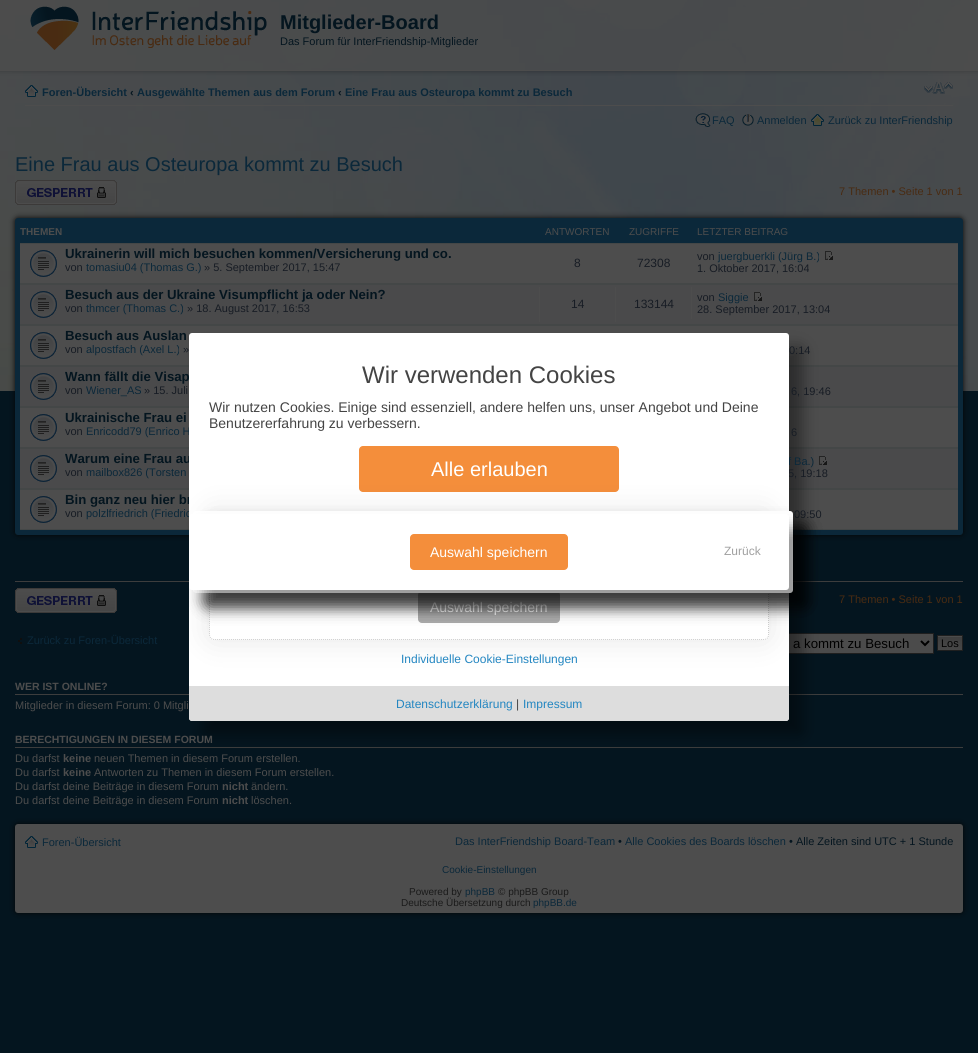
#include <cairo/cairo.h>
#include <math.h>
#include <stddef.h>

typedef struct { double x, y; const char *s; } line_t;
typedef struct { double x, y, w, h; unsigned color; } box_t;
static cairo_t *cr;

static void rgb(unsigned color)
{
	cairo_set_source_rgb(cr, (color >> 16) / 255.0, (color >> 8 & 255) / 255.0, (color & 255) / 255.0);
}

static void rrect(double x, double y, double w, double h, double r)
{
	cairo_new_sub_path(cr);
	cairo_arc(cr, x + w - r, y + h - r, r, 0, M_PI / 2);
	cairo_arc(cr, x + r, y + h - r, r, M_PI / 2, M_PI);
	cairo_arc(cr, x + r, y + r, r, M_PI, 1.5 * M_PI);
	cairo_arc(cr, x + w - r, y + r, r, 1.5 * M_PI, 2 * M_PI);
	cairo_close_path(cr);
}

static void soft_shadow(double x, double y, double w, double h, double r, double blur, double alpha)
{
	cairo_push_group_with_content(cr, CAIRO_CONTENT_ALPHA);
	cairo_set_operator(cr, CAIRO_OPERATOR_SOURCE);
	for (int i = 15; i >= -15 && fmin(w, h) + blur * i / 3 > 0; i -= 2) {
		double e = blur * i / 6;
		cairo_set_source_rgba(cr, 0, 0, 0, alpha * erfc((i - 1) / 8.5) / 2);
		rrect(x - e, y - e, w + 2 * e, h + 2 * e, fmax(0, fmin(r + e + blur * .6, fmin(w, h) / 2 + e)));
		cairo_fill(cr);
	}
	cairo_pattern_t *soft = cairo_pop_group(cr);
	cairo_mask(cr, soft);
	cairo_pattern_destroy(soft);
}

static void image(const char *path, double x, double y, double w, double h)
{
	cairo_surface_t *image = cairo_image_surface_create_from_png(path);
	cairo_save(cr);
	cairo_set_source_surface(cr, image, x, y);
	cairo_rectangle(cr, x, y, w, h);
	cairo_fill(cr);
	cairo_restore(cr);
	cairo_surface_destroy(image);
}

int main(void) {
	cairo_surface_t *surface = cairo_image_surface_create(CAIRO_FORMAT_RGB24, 978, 1053);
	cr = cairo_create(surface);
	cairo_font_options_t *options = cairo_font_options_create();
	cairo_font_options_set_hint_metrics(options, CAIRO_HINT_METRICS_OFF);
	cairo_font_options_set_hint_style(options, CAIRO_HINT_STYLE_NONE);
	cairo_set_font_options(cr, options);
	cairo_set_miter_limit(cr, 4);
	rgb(0x04151f);
	cairo_paint(cr);
	image("img/1.png", 0, 0, 978, 391);
	image("img/2.png", 0, 0, 978, 76);
	image("img/3.png", 30, 6, 237, 44);
	rgb(0x4d4d4d);
	cairo_rectangle(cr, 25, 105, 928, 1);
	cairo_fill(cr);
	image("img/4.png", 25, 85, 13, 12);
	image("img/5.png", 924, 82, 29, 12);
	image("img/6.png", 695, 113, 16, 14);
	image("img/7.png", 742, 114, 12, 12);
	image("img/8.png", 811, 114, 13, 12);
	image("img/9.png", 15, 180, 102, 25);
	rgb(0x050505);
	soft_shadow(15, 218, 948, 317, 3, 3, 1);
	rgb(0x0b283a);
	rrect(15, 218, 948, 317, 3);
	cairo_fill(cr);
	{
		static const box_t items[] = {
			{20, 244, 938, 39, 0x4d4d4d},
			{20, 243, 938, 1, 0x444747},
			{20, 283, 938, 2, 0x444747},
		};
		for (size_t i = 0; i < sizeof items / sizeof *items; i++) {
			rgb(items[i].color);
			cairo_rectangle(cr, items[i].x, items[i].y, items[i].w, items[i].h);
			cairo_fill(cr);
		}
	}
	image("img/10.png", 30, 250, 27, 27);
	image("img/11.png", 825, 251, 8, 9);
	rgb(0x4a4a4b);
	cairo_rectangle(cr, 20, 285, 938, 39);
	cairo_fill(cr);
	rgb(0x444747);
	cairo_rectangle(cr, 20, 324, 938, 2);
	cairo_fill(cr);
	image("img/12.png", 30, 291, 27, 27);
	{
		static const box_t items[] = {
			{539, 287, 1, 35, 0x4d4d4d},
			{615, 287, 1, 35, 0x4d4d4d},
			{691, 287, 1, 32, 0x4d4d4d},
		};
		for (size_t i = 0; i < sizeof items / sizeof *items; i++) {
			rgb(items[i].color);
			cairo_rectangle(cr, items[i].x, items[i].y, items[i].w, items[i].h);
			cairo_fill(cr);
		}
	}
	image("img/13.png", 754, 292, 8, 9);
	cairo_rectangle(cr, 20, 326, 938, 39);
	cairo_fill(cr);
	rgb(0x444747);
	cairo_rectangle(cr, 20, 365, 938, 2);
	cairo_fill(cr);
	image("img/10.png", 30, 332, 27, 27);
	rgb(0x4a4a4b);
	cairo_rectangle(cr, 20, 367, 938, 39);
	cairo_fill(cr);
	rgb(0x444747);
	cairo_rectangle(cr, 20, 406, 938, 2);
	cairo_fill(cr);
	image("img/12.png", 30, 373, 27, 27);
	rgb(0x4d4d4d);
	cairo_rectangle(cr, 20, 408, 938, 39);
	cairo_fill(cr);
	rgb(0x444747);
	cairo_rectangle(cr, 20, 447, 938, 2);
	cairo_fill(cr);
	image("img/10.png", 30, 414, 27, 27);
	rgb(0x4a4a4b);
	cairo_rectangle(cr, 20, 449, 938, 39);
	cairo_fill(cr);
	rgb(0x444747);
	cairo_rectangle(cr, 20, 488, 938, 2);
	cairo_fill(cr);
	image("img/12.png", 30, 455, 27, 27);
	image("img/13.png", 819, 456, 8, 9);
	rgb(0x4d4d4d);
	cairo_rectangle(cr, 20, 490, 938, 39);
	cairo_fill(cr);
	rgb(0x444747);
	cairo_rectangle(cr, 20, 529, 938, 1);
	cairo_fill(cr);
	image("img/10.png", 30, 496, 27, 27);
	rgb(0x3d3d3d);
	cairo_rectangle(cr, 15, 581, 948, 1);
	cairo_fill(cr);
	image("img/14.png", 15, 588, 102, 25);
	image("img/15.png", 18, 638, 4, 6);
	rgb(0x4b4b4b);
	cairo_rectangle(cr, 789, 634, 144, 19);
	cairo_fill(cr);
	cairo_rectangle(cr, 634.5, 633.5, 299, 20);
	rgb(0x1f1f1f);
	cairo_set_line_width(cr, 1);
	cairo_stroke(cr);
	cairo_new_path(cr);
	cairo_move_to(cr, 921, 641);
	cairo_line_to(cr, 925, 645);
	cairo_line_to(cr, 929, 641);
	rgb(0x000000);
	cairo_set_line_width(cr, 2);
	cairo_stroke(cr);
	image("img/16.png", 938, 636, 24, 14);
	cairo_rectangle(cr, 937.5, 635.5, 25, 15);
	rgb(0x1f1f1f);
	cairo_set_line_width(cr, 1);
	cairo_stroke(cr);
	rgb(0x3d3d3d);
	cairo_rectangle(cr, 15, 694, 948, 1);
	cairo_fill(cr);
	cairo_rectangle(cr, 15, 747, 948, 1);
	cairo_fill(cr);
	rgb(0x050505);
	soft_shadow(15, 824, 948, 89, 3, 3, 1);
	rgb(0x4d4d4d);
	rrect(15, 824, 948, 89, 3);
	cairo_fill(cr);
	rgb(0x000000);
	soft_shadow(203, 347, 600, 388, 3, 7.5, 0.4);
	image("img/17.png", 25, 836, 13, 12);
	cairo_select_font_face(cr, "Liberation Sans", CAIRO_FONT_SLANT_NORMAL, CAIRO_FONT_WEIGHT_BOLD);
	cairo_set_font_size(cr, 20);
	rgb(0x04151f);
	cairo_move_to(cr, 280, 29);
	cairo_show_text(cr, "Mitglieder-Board");
	cairo_select_font_face(cr, "Liberation Sans", CAIRO_FONT_SLANT_NORMAL, CAIRO_FONT_WEIGHT_NORMAL);
	cairo_set_font_size(cr, 11);
	cairo_move_to(cr, 280, 45);
	cairo_show_text(cr, "Das Forum für InterFriendship-Mitglieder");
	cairo_select_font_face(cr, "Liberation Sans", CAIRO_FONT_SLANT_NORMAL, CAIRO_FONT_WEIGHT_BOLD);
	rgb(0x0b283a);
	cairo_move_to(cr, 42, 96);
	cairo_show_text(cr, "Foren-Übersicht");
	rgb(0x04151f);
	cairo_move_to(cr, 130, 96);
	cairo_show_text(cr, "‹");
	rgb(0x0b283a);
	cairo_move_to(cr, 137, 96);
	cairo_show_text(cr, "Ausgewählte Themen aus dem Forum");
	rgb(0x04151f);
	cairo_move_to(cr, 338, 96);
	cairo_show_text(cr, "‹");
	rgb(0x0b283a);
	cairo_move_to(cr, 345, 96);
	cairo_show_text(cr, "Eine Frau aus Osteuropa kommt zu Besuch");
	cairo_select_font_face(cr, "Liberation Sans", CAIRO_FONT_SLANT_NORMAL, CAIRO_FONT_WEIGHT_NORMAL);
	{
		static const line_t items[] = {
			{712, 124, "FAQ"},
			{757, 124, "Anmelden"},
			{828, 124, "Zurück zu InterFriendship"},
		};
		for (size_t i = 0; i < sizeof items / sizeof *items; i++) {
			cairo_move_to(cr, items[i].x, items[i].y);
			cairo_show_text(cr, items[i].s);
		}
	}
	cairo_set_font_size(cr, 20);
	cairo_move_to(cr, 15, 171);
	cairo_show_text(cr, "Eine Frau aus Osteuropa kommt zu Besuch");
	cairo_set_font_size(cr, 11);
	rgb(0x492b12);
	cairo_move_to(cr, 839, 195);
	cairo_show_text(cr, "7 Themen • Seite 1 von 1");
	cairo_select_font_face(cr, "Liberation Sans", CAIRO_FONT_SLANT_NORMAL, CAIRO_FONT_WEIGHT_BOLD);
	cairo_set_font_size(cr, 10);
	rgb(0x4d4d4d);
	cairo_move_to(cr, 20, 235);
	cairo_show_text(cr, "THEMEN");
	cairo_select_font_face(cr, "Liberation Sans", CAIRO_FONT_SLANT_NORMAL, CAIRO_FONT_WEIGHT_NORMAL);
	{
		static const line_t items[] = {
			{545, 235, "ANTWORTEN"},
			{629, 235, "ZUGRIFFE"},
			{697, 235, "LETZTER BEITRAG"},
		};
		for (size_t i = 0; i < sizeof items / sizeof *items; i++) {
			cairo_move_to(cr, items[i].x, items[i].y);
			cairo_show_text(cr, items[i].s);
		}
	}
	cairo_select_font_face(cr, "Liberation Sans", CAIRO_FONT_SLANT_NORMAL, CAIRO_FONT_WEIGHT_BOLD);
	cairo_set_font_size(cr, 13.2);
	rgb(0x04151f);
	cairo_move_to(cr, 65, 258);
	cairo_show_text(cr, "Ukrainerin will mich besuchen kommen/Versicherung und co.");
	cairo_select_font_face(cr, "Liberation Sans", CAIRO_FONT_SLANT_NORMAL, CAIRO_FONT_WEIGHT_NORMAL);
	cairo_set_font_size(cr, 11);
	rgb(0x171c24);
	cairo_move_to(cr, 65, 271);
	cairo_show_text(cr, "von");
	rgb(0x0b283a);
	cairo_move_to(cr, 86, 271);
	cairo_show_text(cr, "tomasiu04 (Thomas G.)");
	rgb(0x171c24);
	cairo_move_to(cr, 204, 271);
	cairo_show_text(cr, "» 5. September 2017, 15:47");
	cairo_set_font_size(cr, 12);
	cairo_move_to(cr, 574, 267);
	cairo_show_text(cr, "8");
	cairo_move_to(cr, 637, 267);
	cairo_show_text(cr, "72308");
	cairo_set_font_size(cr, 11);
	cairo_move_to(cr, 697, 260);
	cairo_show_text(cr, "von");
	rgb(0x0b283a);
	cairo_move_to(cr, 718, 260);
	cairo_show_text(cr, "juergbuerkli (Jürg B.)");
	rgb(0x171c24);
	cairo_move_to(cr, 697, 272);
	cairo_show_text(cr, "1. Oktober 2017, 16:04");
	cairo_select_font_face(cr, "Liberation Sans", CAIRO_FONT_SLANT_NORMAL, CAIRO_FONT_WEIGHT_BOLD);
	cairo_set_font_size(cr, 13.2);
	rgb(0x04151f);
	cairo_move_to(cr, 65, 299);
	cairo_show_text(cr, "Besuch aus der Ukraine Visumpflicht ja oder Nein?");
	cairo_select_font_face(cr, "Liberation Sans", CAIRO_FONT_SLANT_NORMAL, CAIRO_FONT_WEIGHT_NORMAL);
	cairo_set_font_size(cr, 11);
	rgb(0x171c24);
	cairo_move_to(cr, 65, 312);
	cairo_show_text(cr, "von");
	rgb(0x0b283a);
	cairo_move_to(cr, 86, 312);
	cairo_show_text(cr, "thmcer (Thomas C.)");
	rgb(0x171c24);
	cairo_move_to(cr, 187, 312);
	cairo_show_text(cr, "» 18. August 2017, 16:53");
	cairo_set_font_size(cr, 12);
	cairo_move_to(cr, 571, 308);
	cairo_show_text(cr, "14");
	cairo_move_to(cr, 634, 308);
	cairo_show_text(cr, "133144");
	cairo_set_font_size(cr, 11);
	cairo_move_to(cr, 697, 301);
	cairo_show_text(cr, "von");
	rgb(0x0b283a);
	cairo_move_to(cr, 718, 301);
	cairo_show_text(cr, "Siggie");
	rgb(0x171c24);
	cairo_move_to(cr, 697, 313);
	cairo_show_text(cr, "28. September 2017, 13:04");
	cairo_select_font_face(cr, "Liberation Sans", CAIRO_FONT_SLANT_NORMAL, CAIRO_FONT_WEIGHT_BOLD);
	cairo_set_font_size(cr, 13.2);
	rgb(0x04151f);
	cairo_move_to(cr, 65, 340);
	cairo_show_text(cr, "Besuch aus Auslan");
	cairo_select_font_face(cr, "Liberation Sans", CAIRO_FONT_SLANT_NORMAL, CAIRO_FONT_WEIGHT_NORMAL);
	cairo_set_font_size(cr, 11);
	rgb(0x171c24);
	cairo_move_to(cr, 65, 353);
	cairo_show_text(cr, "von");
	rgb(0x0b283a);
	cairo_move_to(cr, 86, 353);
	cairo_show_text(cr, "alpostfach (Axel L.)");
	rgb(0x171c24);
	cairo_move_to(cr, 183, 353);
	cairo_show_text(cr, "»");
	cairo_move_to(cr, 789, 354);
	cairo_show_text(cr, "0:14");
	cairo_select_font_face(cr, "Liberation Sans", CAIRO_FONT_SLANT_NORMAL, CAIRO_FONT_WEIGHT_BOLD);
	cairo_set_font_size(cr, 13.2);
	rgb(0x04151f);
	cairo_move_to(cr, 65, 381);
	cairo_show_text(cr, "Wann fällt die Visap");
	cairo_select_font_face(cr, "Liberation Sans", CAIRO_FONT_SLANT_NORMAL, CAIRO_FONT_WEIGHT_NORMAL);
	cairo_set_font_size(cr, 11);
	rgb(0x171c24);
	cairo_move_to(cr, 65, 394);
	cairo_show_text(cr, "von");
	rgb(0x0b283a);
	cairo_move_to(cr, 86, 394);
	cairo_show_text(cr, "Wiener_AS");
	rgb(0x171c24);
	cairo_move_to(cr, 144, 394);
	cairo_show_text(cr, "» 15. Juli");
	cairo_move_to(cr, 791, 395);
	cairo_show_text(cr, "6, 19:46");
	cairo_select_font_face(cr, "Liberation Sans", CAIRO_FONT_SLANT_NORMAL, CAIRO_FONT_WEIGHT_BOLD);
	cairo_set_font_size(cr, 13.2);
	rgb(0x04151f);
	cairo_move_to(cr, 65, 422);
	cairo_show_text(cr, "Ukrainische Frau ei");
	cairo_select_font_face(cr, "Liberation Sans", CAIRO_FONT_SLANT_NORMAL, CAIRO_FONT_WEIGHT_NORMAL);
	cairo_set_font_size(cr, 11);
	rgb(0x171c24);
	cairo_move_to(cr, 65, 435);
	cairo_show_text(cr, "von");
	rgb(0x0b283a);
	cairo_move_to(cr, 86, 435);
	cairo_show_text(cr, "Enricodd79 (Enrico H");
	rgb(0x171c24);
	cairo_move_to(cr, 791, 436);
	cairo_show_text(cr, "6");
	cairo_select_font_face(cr, "Liberation Sans", CAIRO_FONT_SLANT_NORMAL, CAIRO_FONT_WEIGHT_BOLD);
	cairo_set_font_size(cr, 13.2);
	rgb(0x04151f);
	cairo_move_to(cr, 65, 463);
	cairo_show_text(cr, "Warum eine Frau au");
	cairo_select_font_face(cr, "Liberation Sans", CAIRO_FONT_SLANT_NORMAL, CAIRO_FONT_WEIGHT_NORMAL);
	cairo_set_font_size(cr, 11);
	rgb(0x171c24);
	cairo_move_to(cr, 65, 476);
	cairo_show_text(cr, "von");
	rgb(0x0b283a);
	cairo_move_to(cr, 86, 476);
	cairo_show_text(cr, "mailbox826 (Torsten");
	cairo_move_to(cr, 788, 465);
	cairo_show_text(cr, "f Ba.)");
	rgb(0x171c24);
	cairo_move_to(cr, 788, 477);
	cairo_show_text(cr, "5, 19:18");
	cairo_select_font_face(cr, "Liberation Sans", CAIRO_FONT_SLANT_NORMAL, CAIRO_FONT_WEIGHT_BOLD);
	cairo_set_font_size(cr, 13.2);
	rgb(0x04151f);
	cairo_move_to(cr, 65, 504);
	cairo_show_text(cr, "Bin ganz neu hier br");
	cairo_select_font_face(cr, "Liberation Sans", CAIRO_FONT_SLANT_NORMAL, CAIRO_FONT_WEIGHT_NORMAL);
	cairo_set_font_size(cr, 11);
	rgb(0x171c24);
	cairo_move_to(cr, 65, 517);
	cairo_show_text(cr, "von");
	rgb(0x0b283a);
	cairo_move_to(cr, 86, 517);
	cairo_show_text(cr, "polzlfriedrich (Friedric");
	rgb(0x171c24);
	cairo_move_to(cr, 794, 518);
	cairo_show_text(cr, "09:50");
	rgb(0x492b12);
	cairo_move_to(cr, 839, 603);
	cairo_show_text(cr, "7 Themen • Seite 1 von 1");
	rgb(0x0b283a);
	cairo_move_to(cr, 27, 644);
	cairo_show_text(cr, "Zurück zu Foren-Übersicht");
	cairo_set_font_size(cr, 13.25);
	rgb(0x000000);
	cairo_move_to(cr, 793, 648);
	cairo_show_text(cr, "a kommt zu Besuch");
	cairo_set_font_size(cr, 11);
	cairo_move_to(cr, 941, 647);
	cairo_show_text(cr, "Los");
	cairo_select_font_face(cr, "Liberation Sans", CAIRO_FONT_SLANT_NORMAL, CAIRO_FONT_WEIGHT_BOLD);
	cairo_set_font_size(cr, 10.5);
	rgb(0x4d4d4d);
	cairo_move_to(cr, 15, 690);
	cairo_show_text(cr, "WER IST ONLINE?");
	cairo_select_font_face(cr, "Liberation Sans", CAIRO_FONT_SLANT_NORMAL, CAIRO_FONT_WEIGHT_NORMAL);
	cairo_set_font_size(cr, 11);
	cairo_move_to(cr, 15, 709);
	cairo_show_text(cr, "Mitglieder in diesem Forum: 0 Mitgli");
	cairo_select_font_face(cr, "Liberation Sans", CAIRO_FONT_SLANT_NORMAL, CAIRO_FONT_WEIGHT_BOLD);
	cairo_set_font_size(cr, 10.5);
	cairo_move_to(cr, 15, 743);
	cairo_show_text(cr, "BERECHTIGUNGEN IN DIESEM FORUM");
	cairo_select_font_face(cr, "Liberation Sans", CAIRO_FONT_SLANT_NORMAL, CAIRO_FONT_WEIGHT_NORMAL);
	cairo_set_font_size(cr, 11);
	cairo_move_to(cr, 15, 762);
	cairo_show_text(cr, "Du darfst");
	cairo_select_font_face(cr, "Liberation Sans", CAIRO_FONT_SLANT_NORMAL, CAIRO_FONT_WEIGHT_BOLD);
	cairo_move_to(cr, 63, 762);
	cairo_show_text(cr, "keine");
	cairo_select_font_face(cr, "Liberation Sans", CAIRO_FONT_SLANT_NORMAL, CAIRO_FONT_WEIGHT_NORMAL);
	cairo_move_to(cr, 94, 762);
	cairo_show_text(cr, "neuen Themen in diesem Forum erstellen.");
	cairo_move_to(cr, 15, 776);
	cairo_show_text(cr, "Du darfst");
	cairo_select_font_face(cr, "Liberation Sans", CAIRO_FONT_SLANT_NORMAL, CAIRO_FONT_WEIGHT_BOLD);
	cairo_move_to(cr, 63, 776);
	cairo_show_text(cr, "keine");
	cairo_select_font_face(cr, "Liberation Sans", CAIRO_FONT_SLANT_NORMAL, CAIRO_FONT_WEIGHT_NORMAL);
	cairo_move_to(cr, 94, 776);
	cairo_show_text(cr, "Antworten zu Themen in diesem Forum erstellen.");
	cairo_move_to(cr, 15, 790);
	cairo_show_text(cr, "Du darfst deine Beiträge in diesem Forum");
	cairo_select_font_face(cr, "Liberation Sans", CAIRO_FONT_SLANT_NORMAL, CAIRO_FONT_WEIGHT_BOLD);
	cairo_move_to(cr, 222, 790);
	cairo_show_text(cr, "nicht");
	cairo_select_font_face(cr, "Liberation Sans", CAIRO_FONT_SLANT_NORMAL, CAIRO_FONT_WEIGHT_NORMAL);
	cairo_move_to(cr, 251, 790);
	cairo_show_text(cr, "ändern.");
	cairo_move_to(cr, 15, 804);
	cairo_show_text(cr, "Du darfst deine Beiträge in diesem Forum");
	cairo_select_font_face(cr, "Liberation Sans", CAIRO_FONT_SLANT_NORMAL, CAIRO_FONT_WEIGHT_BOLD);
	cairo_move_to(cr, 222, 804);
	cairo_show_text(cr, "nicht");
	cairo_select_font_face(cr, "Liberation Sans", CAIRO_FONT_SLANT_NORMAL, CAIRO_FONT_WEIGHT_NORMAL);
	cairo_move_to(cr, 251, 804);
	cairo_show_text(cr, "löschen.");
	rgb(0xffffff);
	rrect(189, 333, 600, 388, 3);
	cairo_fill(cr);
	cairo_set_font_size(cr, 24);
	rgb(0x444444);
	cairo_move_to(cr, 362, 383);
	cairo_show_text(cr, "Wir verwenden Cookies");
	cairo_set_font_size(cr, 14);
	cairo_move_to(cr, 209, 412);
	cairo_show_text(cr, "Wir nutzen Cookies. Einige sind essenziell, andere helfen uns, unser Angebot und Deine");
	cairo_move_to(cr, 209, 428);
	cairo_show_text(cr, "Benutzererfahrung zu verbessern.");
	rgb(0xf48e3b);
	rrect(359, 446, 260, 46, 4);
	cairo_fill(cr);
	cairo_save(cr);
	cairo_set_fill_rule(cr, CAIRO_FILL_RULE_EVEN_ODD);
	cairo_new_path(cr);
	cairo_move_to(cr, 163, 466);
	cairo_line_to(cr, 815, 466);
	cairo_line_to(cr, 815, 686);
	cairo_line_to(cr, 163, 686);
	cairo_close_path(cr);
	cairo_move_to(cr, 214, 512);
	cairo_line_to(cr, 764, 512);
	cairo_curve_to(cr, 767, 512, 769, 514, 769, 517);
	cairo_line_to(cr, 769, 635);
	cairo_curve_to(cr, 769, 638, 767, 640, 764, 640);
	cairo_line_to(cr, 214, 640);
	cairo_curve_to(cr, 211, 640, 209, 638, 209, 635);
	cairo_line_to(cr, 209, 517);
	cairo_curve_to(cr, 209, 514, 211, 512, 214, 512);
	cairo_close_path(cr);
	cairo_clip(cr);
	rgb(0x000000);
	soft_shadow(209, 512, 560, 128, 5, 15, 0.1);
	cairo_restore(cr);
	cairo_set_font_size(cr, 20);
	rgb(0xffffff);
	cairo_move_to(cr, 431, 476);
	cairo_show_text(cr, "Alle erlauben");
	cairo_new_path(cr);
	cairo_move_to(cr, 214, 512.5);
	cairo_line_to(cr, 764, 512.5);
	cairo_curve_to(cr, 766.5, 512.5, 768.5, 514.5, 768.5, 517);
	cairo_line_to(cr, 768.5, 635);
	cairo_curve_to(cr, 768.5, 637.5, 766.5, 639.5, 764, 639.5);
	cairo_line_to(cr, 214, 639.5);
	cairo_curve_to(cr, 211.5, 639.5, 209.5, 637.5, 209.5, 635);
	cairo_line_to(cr, 209.5, 517);
	cairo_curve_to(cr, 209.5, 514.5, 211.5, 512.5, 214, 512.5);
	cairo_close_path(cr);
	rgb(0xcccccc);
	cairo_set_dash(cr, (double[]){1, 1}, 2, 0);
	cairo_stroke(cr);
	rgb(0xaaaaaa);
	rrect(418, 591, 142, 32, 4);
	cairo_fill(cr);
	cairo_set_font_size(cr, 14);
	rgb(0xffffff);
	cairo_move_to(cr, 430, 612);
	cairo_show_text(cr, "Auswahl speichern");
	cairo_set_font_size(cr, 12);
	rgb(0x2386c1);
	cairo_move_to(cr, 401, 663);
	cairo_show_text(cr, "Individuelle Cookie-Einstellungen");
	rgb(0xdddddd);
	cairo_new_path(cr);
	cairo_move_to(cr, 189, 686);
	cairo_line_to(cr, 789, 686);
	cairo_line_to(cr, 789, 718);
	cairo_curve_to(cr, 789, 719.5, 787.5, 721, 786, 721);
	cairo_line_to(cr, 192, 721);
	cairo_curve_to(cr, 190.5, 721, 189, 719.5, 189, 718);
	cairo_close_path(cr);
	cairo_fill(cr);
	rgb(0x2386c1);
	cairo_move_to(cr, 396, 708);
	cairo_show_text(cr, "Datenschutzerklärung");
	rgb(0x444444);
	cairo_move_to(cr, 516, 708);
	cairo_show_text(cr, "|");
	rgb(0x2386c1);
	cairo_move_to(cr, 523, 708);
	cairo_show_text(cr, "Impressum");
	rgb(0x000000);
	soft_shadow(207, 525, 600, 82, 3, 7.5, 0.4);
	soft_shadow(207, 525, 600, 82, 3, 7.5, 0.4);
	rgb(0xffffff);
	rrect(193, 511, 600, 82, 3);
	cairo_fill(cr);
	rgb(0x000000);
	soft_shadow(203, 528, 600, 76, 3, 7.5, 0.4);
	rgb(0xffffff);
	rrect(189, 514, 600, 76, 3);
	cairo_fill(cr);
	rgb(0xf48e3b);
	rrect(410, 534, 158, 36, 4);
	cairo_fill(cr);
	cairo_set_font_size(cr, 14);
	rgb(0xffffff);
	cairo_move_to(cr, 430, 557);
	cairo_show_text(cr, "Auswahl speichern");
	cairo_set_font_size(cr, 12);
	rgb(0xa0a0a0);
	cairo_move_to(cr, 724, 555);
	cairo_show_text(cr, "Zurück");
	cairo_set_font_size(cr, 11);
	rgb(0x0b283a);
	cairo_move_to(cr, 42, 846);
	cairo_show_text(cr, "Foren-Übersicht");
	cairo_move_to(cr, 455, 845);
	cairo_show_text(cr, "Das InterFriendship Board-Team");
	rgb(0x04151f);
	cairo_move_to(cr, 618, 845);
	cairo_show_text(cr, "•");
	rgb(0x0b283a);
	cairo_move_to(cr, 625, 845);
	cairo_show_text(cr, "Alle Cookies des Boards löschen");
	rgb(0x04151f);
	cairo_move_to(cr, 789, 845);
	cairo_show_text(cr, "• Alle Zeiten sind UTC + 1 Stunde");
	cairo_set_font_size(cr, 10);
	rgb(0x0b283a);
	cairo_move_to(cr, 442, 873);
	cairo_show_text(cr, "Cookie-Einstellungen");
	rgb(0x1a1a1a);
	cairo_move_to(cr, 409, 895);
	cairo_show_text(cr, "Powered by");
	rgb(0x0b283a);
	cairo_move_to(cr, 465, 895);
	cairo_show_text(cr, "phpBB");
	rgb(0x1a1a1a);
	cairo_move_to(cr, 498, 895);
	cairo_show_text(cr, "© phpBB Group");
	cairo_move_to(cr, 401, 906);
	cairo_show_text(cr, "Deutsche Übersetzung durch");
	rgb(0x0b283a);
	cairo_move_to(cr, 533, 906);
	cairo_show_text(cr, "phpBB.de");
	cairo_surface_write_to_png(surface, "page.png");
	cairo_font_options_destroy(options);
	cairo_destroy(cr);
	cairo_surface_destroy(surface);
	return 0;
}
